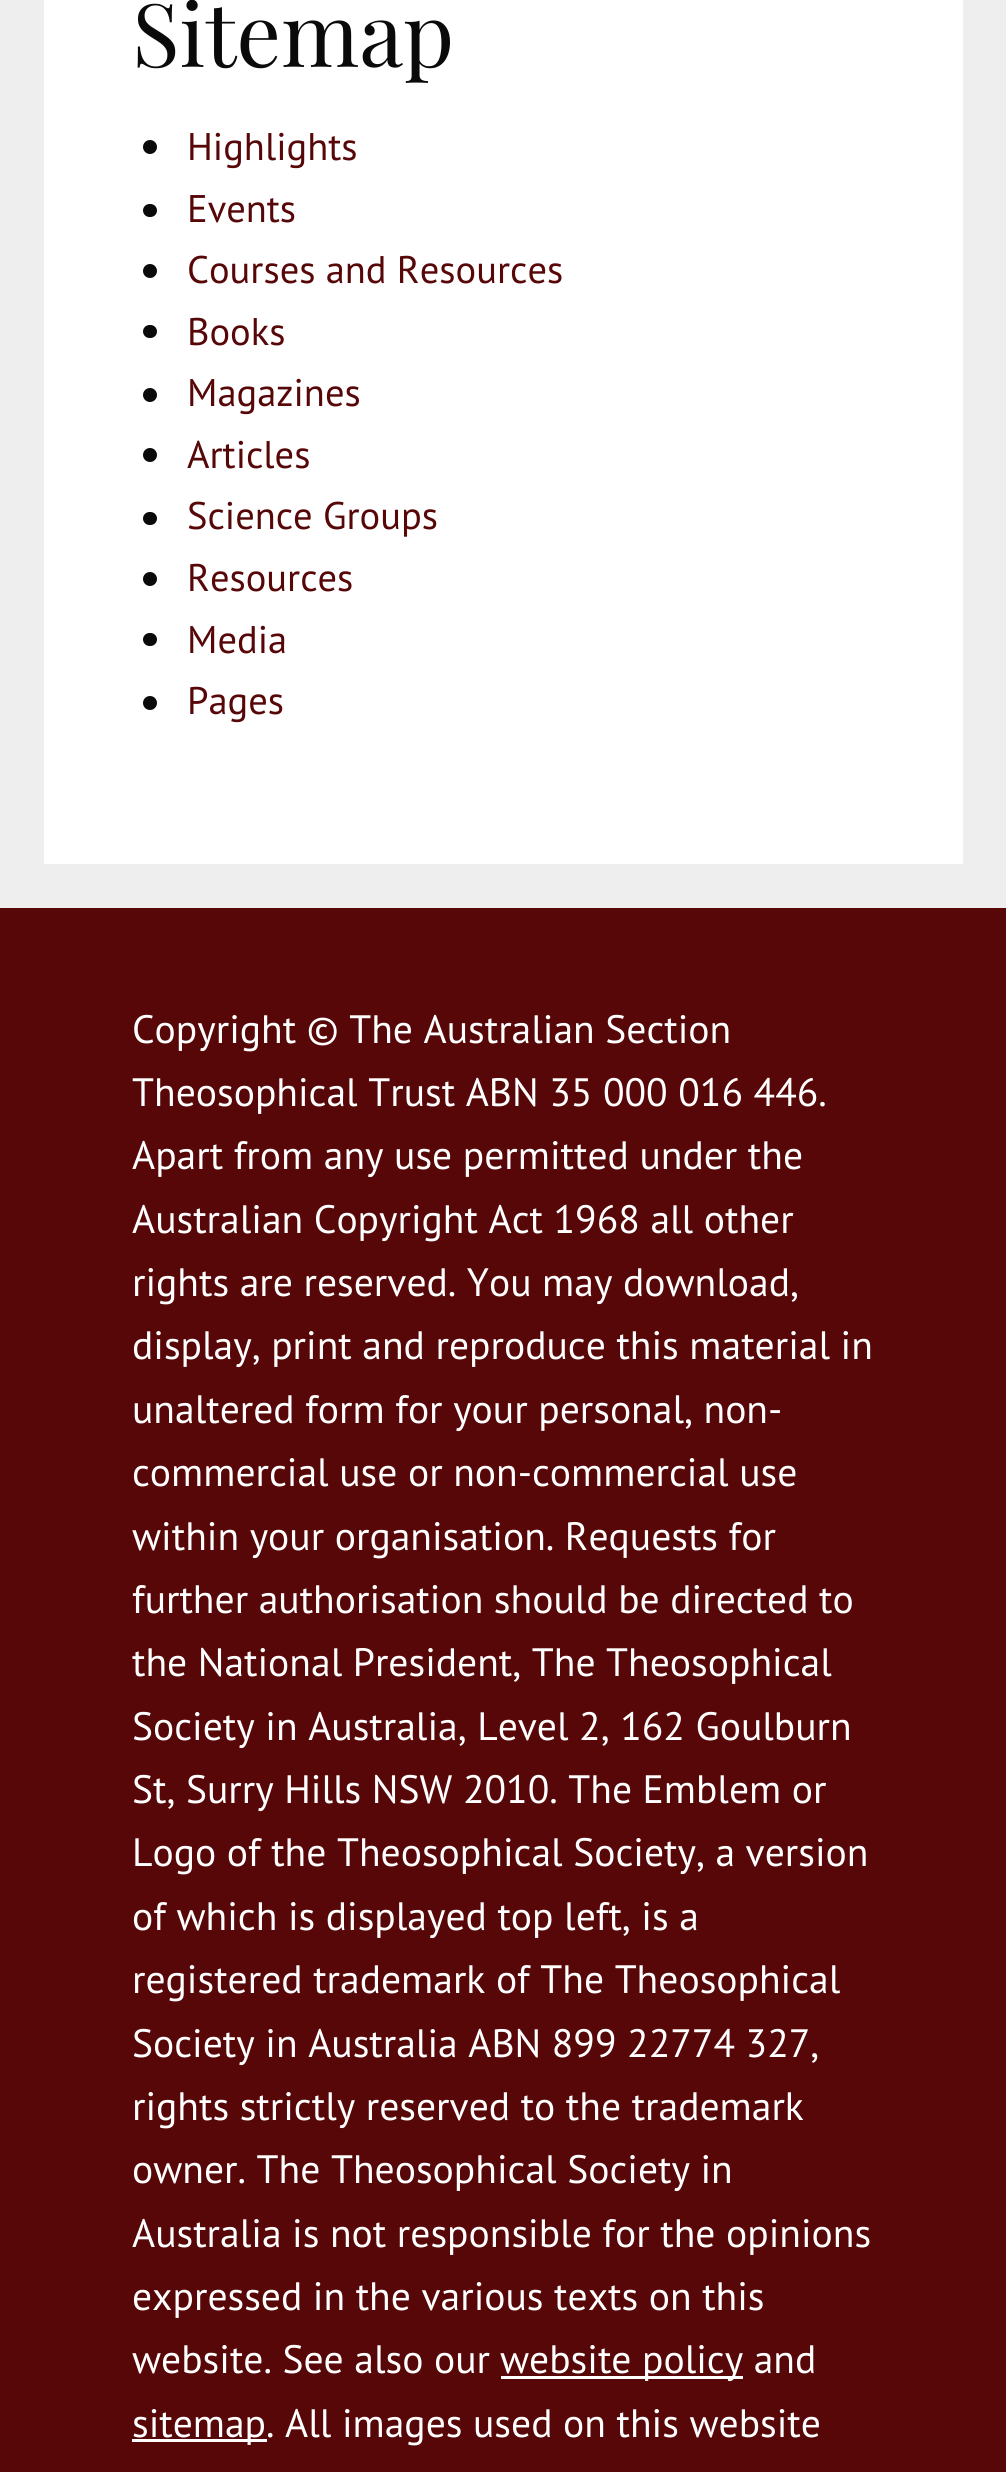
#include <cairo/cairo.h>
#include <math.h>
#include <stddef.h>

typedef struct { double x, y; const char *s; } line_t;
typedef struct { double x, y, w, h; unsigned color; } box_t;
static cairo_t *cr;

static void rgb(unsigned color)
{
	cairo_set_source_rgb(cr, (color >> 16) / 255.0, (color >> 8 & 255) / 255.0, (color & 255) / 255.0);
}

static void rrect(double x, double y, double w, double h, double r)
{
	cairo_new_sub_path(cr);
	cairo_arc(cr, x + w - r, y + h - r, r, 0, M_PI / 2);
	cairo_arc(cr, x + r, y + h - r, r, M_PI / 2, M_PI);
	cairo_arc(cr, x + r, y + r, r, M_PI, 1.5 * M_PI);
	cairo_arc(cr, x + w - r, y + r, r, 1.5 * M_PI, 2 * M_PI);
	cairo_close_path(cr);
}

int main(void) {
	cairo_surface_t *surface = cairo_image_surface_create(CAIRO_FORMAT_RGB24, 1006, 2472);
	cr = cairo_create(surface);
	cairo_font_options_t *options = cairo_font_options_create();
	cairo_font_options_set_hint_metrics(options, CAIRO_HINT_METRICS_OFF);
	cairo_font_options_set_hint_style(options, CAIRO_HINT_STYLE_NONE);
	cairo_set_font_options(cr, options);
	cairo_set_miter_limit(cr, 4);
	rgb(0xeeeeee);
	cairo_paint(cr);
	rgb(0xffffff);
	cairo_rectangle(cr, 44, 0, 919, 864);
	cairo_fill(cr);
	rgb(0x0a0a0a);
	cairo_arc(cr, 150, 147, 7, 0, 2 * M_PI);
	cairo_fill(cr);
	rrect(143, 204, 14, 13, 6.5);
	cairo_fill(cr);
	cairo_arc(cr, 150, 271, 7, 0, 2 * M_PI);
	cairo_fill(cr);
	rrect(143, 325, 14, 13, 6.5);
	cairo_fill(cr);
	cairo_arc(cr, 150, 395, 7, 0, 2 * M_PI);
	cairo_fill(cr);
	cairo_arc(cr, 150, 455, 7, 0, 2 * M_PI);
	cairo_fill(cr);
	rrect(143, 512, 14, 13, 6.5);
	cairo_fill(cr);
	cairo_arc(cr, 150, 579, 7, 0, 2 * M_PI);
	cairo_fill(cr);
	rrect(143, 633, 14, 13, 6.5);
	cairo_fill(cr);
	cairo_arc(cr, 150, 703, 7, 0, 2 * M_PI);
	cairo_fill(cr);
	{
		static const box_t items[] = {
			{0, 908, 1006, 1564, 0x570708},
			{501, 2376, 242, 3, 0xffffff},
			{132, 2439, 135, 3, 0xffffff},
		};
		for (size_t i = 0; i < sizeof items / sizeof *items; i++) {
			rgb(items[i].color);
			cairo_rectangle(cr, items[i].x, items[i].y, items[i].w, items[i].h);
			cairo_fill(cr);
		}
	}
	cairo_select_font_face(cr, "Playfair Display", CAIRO_FONT_SLANT_NORMAL, CAIRO_FONT_WEIGHT_NORMAL);
	cairo_set_font_size(cr, 88);
	rgb(0x0a0a0a);
	cairo_move_to(cr, 132, 67);
	cairo_show_text(cr, "Sitemap");
	cairo_select_font_face(cr, "PT Sans", CAIRO_FONT_SLANT_NORMAL, CAIRO_FONT_WEIGHT_NORMAL);
	cairo_set_font_size(cr, 38.5);
	rgb(0x570708);
	{
		static const line_t items[] = {
			{187, 160, "Highlights"},
			{187, 222, "Events"},
			{187, 283, "Courses and Resources"},
			{187, 345, "Books"},
			{187, 406, "Magazines"},
			{187, 468, "Articles"},
			{187, 529, "Science Groups"},
			{187, 591, "Resources"},
			{187, 653, "Media"},
			{187, 714, "Pages"},
		};
		for (size_t i = 0; i < sizeof items / sizeof *items; i++) {
			cairo_move_to(cr, items[i].x, items[i].y);
			cairo_show_text(cr, items[i].s);
		}
	}
	cairo_set_font_size(cr, 39.6);
	rgb(0xffffff);
	{
		static const line_t items[] = {
			{132, 1043, "Copyright © The Australian Section"},
			{132, 1106, "Theosophical Trust ABN 35 000 016 446."},
			{132, 1169, "Apart from any use permitted under the"},
			{132, 1233, "Australian Copyright Act 1968 all other"},
			{132, 1296, "rights are reserved. You may download,"},
			{132, 1359, "display, print and reproduce this material in"},
			{132, 1423, "unaltered form for your personal, non-"},
			{132, 1486, "commercial use or non-commercial use"},
			{132, 1550, "within your organisation. Requests for"},
			{132, 1613, "further authorisation should be directed to"},
			{132, 1676, "the National President, The Theosophical"},
			{132, 1740, "Society in Australia, Level 2, 162 Goulburn"},
			{132, 1803, "St, Surry Hills NSW 2010. The Emblem or"},
			{132, 1866, "Logo of the Theosophical Society, a version"},
			{132, 1930, "of which is displayed top left, is a"},
			{132, 1993, "registered trademark of The Theosophical"},
			{132, 2057, "Society in Australia ABN 899 22774 327,"},
			{132, 2120, "rights strictly reserved to the trademark"},
			{132, 2183, "owner. The Theosophical Society in"},
			{132, 2247, "Australia is not responsible for the opinions"},
			{132, 2310, "expressed in the various texts on this"},
			{132, 2373, "website. See also our"},
			{500, 2373, "website policy and"},
			{132, 2437, "sitemap. All images used on this website"},
		};
		for (size_t i = 0; i < sizeof items / sizeof *items; i++) {
			cairo_move_to(cr, items[i].x, items[i].y);
			cairo_show_text(cr, items[i].s);
		}
	}
	cairo_surface_write_to_png(surface, "page.png");
	cairo_font_options_destroy(options);
	cairo_destroy(cr);
	cairo_surface_destroy(surface);
	return 0;
}
